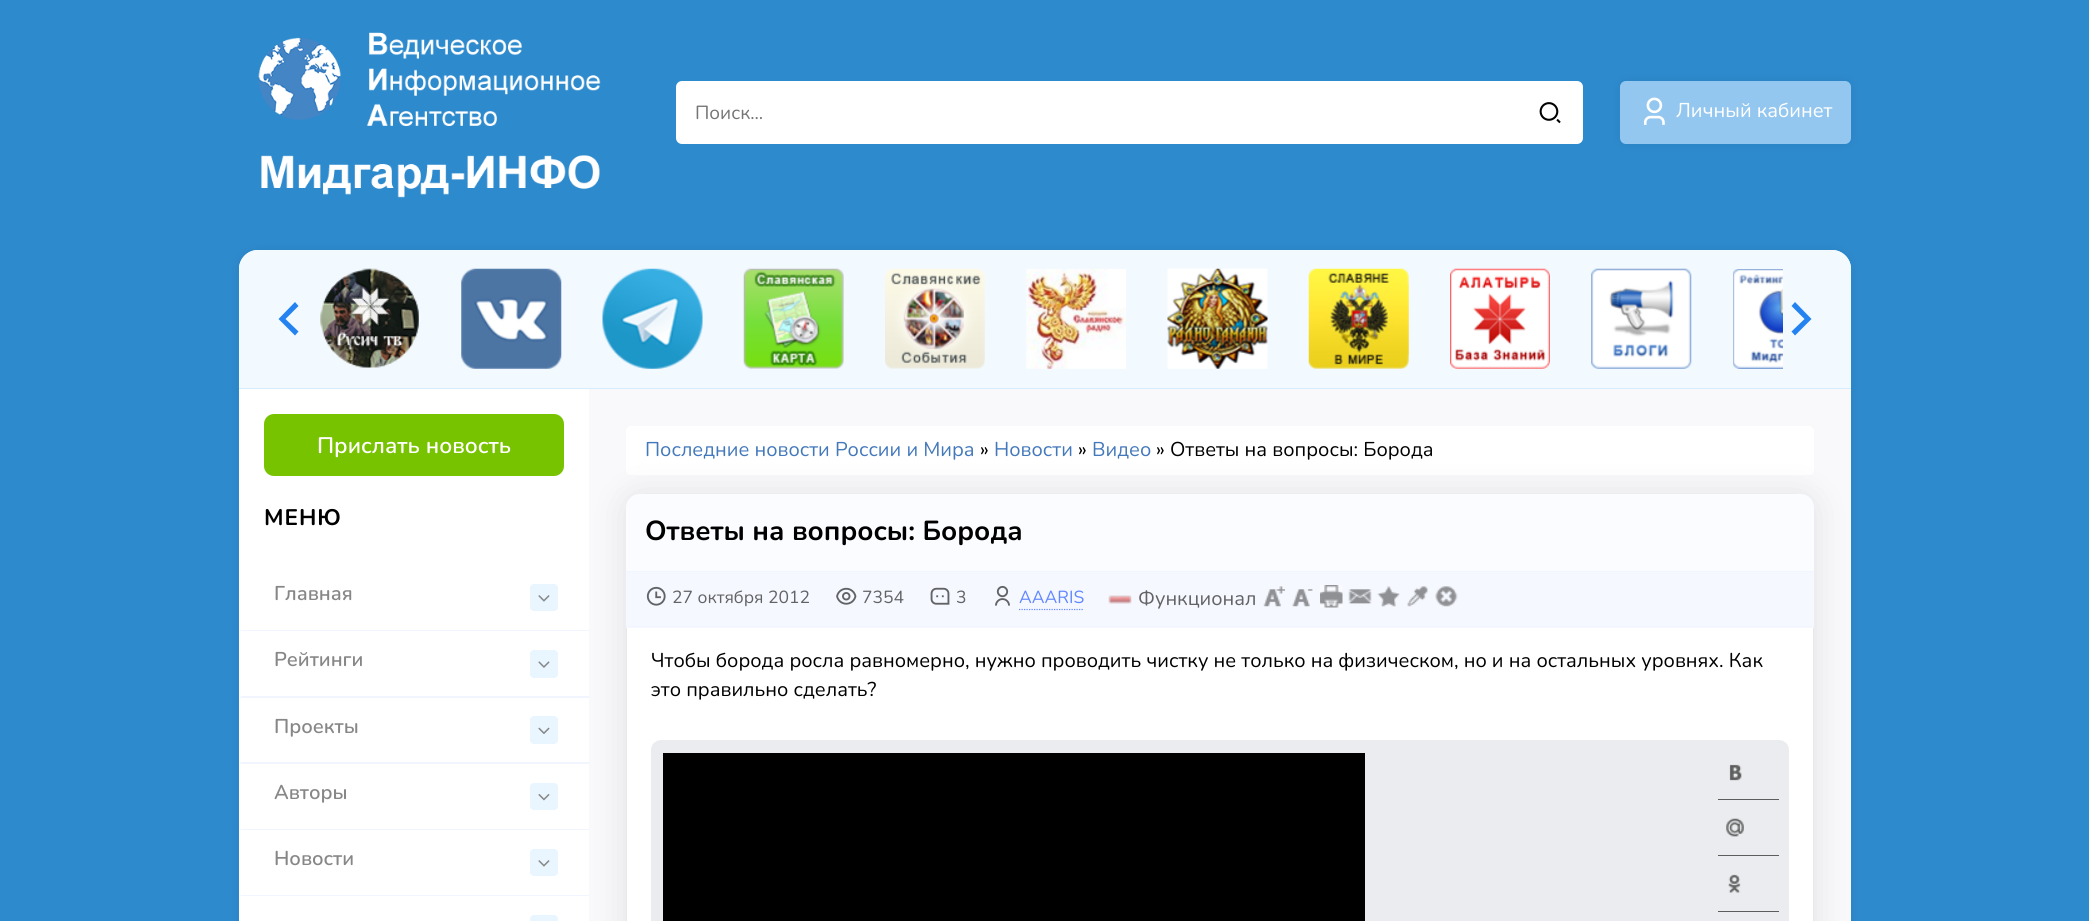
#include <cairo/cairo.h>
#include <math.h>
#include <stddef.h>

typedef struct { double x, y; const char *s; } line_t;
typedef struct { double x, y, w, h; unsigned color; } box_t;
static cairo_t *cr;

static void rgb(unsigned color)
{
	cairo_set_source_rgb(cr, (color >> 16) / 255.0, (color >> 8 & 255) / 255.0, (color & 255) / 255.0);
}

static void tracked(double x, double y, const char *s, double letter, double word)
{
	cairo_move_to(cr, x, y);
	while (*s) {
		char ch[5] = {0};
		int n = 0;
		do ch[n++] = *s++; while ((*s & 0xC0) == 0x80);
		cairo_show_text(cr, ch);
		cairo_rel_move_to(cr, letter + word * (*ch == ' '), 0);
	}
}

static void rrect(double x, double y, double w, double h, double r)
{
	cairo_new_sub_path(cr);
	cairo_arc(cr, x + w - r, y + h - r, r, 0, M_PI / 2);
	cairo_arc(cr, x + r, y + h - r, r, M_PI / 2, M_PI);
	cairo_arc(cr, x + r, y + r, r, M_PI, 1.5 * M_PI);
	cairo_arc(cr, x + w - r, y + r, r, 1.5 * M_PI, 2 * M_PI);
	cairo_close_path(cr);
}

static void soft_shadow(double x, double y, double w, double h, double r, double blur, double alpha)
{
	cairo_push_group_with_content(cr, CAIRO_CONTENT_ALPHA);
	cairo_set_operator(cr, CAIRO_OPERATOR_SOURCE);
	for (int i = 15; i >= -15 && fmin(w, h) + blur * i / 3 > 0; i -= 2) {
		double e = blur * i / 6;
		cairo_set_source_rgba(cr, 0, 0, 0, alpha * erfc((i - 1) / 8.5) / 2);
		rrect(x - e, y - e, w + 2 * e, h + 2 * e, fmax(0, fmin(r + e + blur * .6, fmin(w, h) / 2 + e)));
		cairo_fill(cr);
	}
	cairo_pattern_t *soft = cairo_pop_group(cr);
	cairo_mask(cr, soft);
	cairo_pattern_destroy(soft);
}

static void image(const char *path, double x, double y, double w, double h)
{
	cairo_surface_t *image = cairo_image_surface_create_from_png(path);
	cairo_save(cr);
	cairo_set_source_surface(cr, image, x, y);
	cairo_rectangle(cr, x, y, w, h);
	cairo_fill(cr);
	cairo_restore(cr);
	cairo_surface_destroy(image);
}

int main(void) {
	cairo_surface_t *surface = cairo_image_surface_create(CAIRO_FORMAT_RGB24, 2089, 921);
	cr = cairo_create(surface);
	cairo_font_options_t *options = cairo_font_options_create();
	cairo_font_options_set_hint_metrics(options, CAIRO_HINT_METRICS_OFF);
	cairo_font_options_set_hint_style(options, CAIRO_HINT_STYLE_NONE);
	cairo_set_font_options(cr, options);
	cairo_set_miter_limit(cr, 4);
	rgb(0x2d8acd);
	cairo_paint(cr);
	image("img/1.png", 258, 32, 343, 166);
	rgb(0xffffff);
	rrect(676, 81, 907, 63, 6);
	cairo_fill(cr);
	image("img/2.png", 1539, 102, 22, 22);
	rgb(0x000000);
	soft_shadow(1620, 81, 231, 63, 6, 5, 0.07);
	rgb(0x93c7ef);
	rrect(1620, 81, 231, 63, 6);
	cairo_fill(cr);
	image("img/3.png", 1643, 97, 22, 28);
	rgb(0x000000);
	soft_shadow(239, 250, 1612, 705, 19, 5, 0.07);
	rgb(0xffffff);
	rrect(239, 250, 1612, 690, 19);
	cairo_fill(cr);
	rgb(0xf2f9ff);
	cairo_new_path(cr);
	cairo_move_to(cr, 258, 250);
	cairo_line_to(cr, 1832, 250);
	cairo_curve_to(cr, 1842.5, 250, 1851, 258.5, 1851, 269);
	cairo_line_to(cr, 1851, 388);
	cairo_line_to(cr, 239, 388);
	cairo_line_to(cr, 239, 269);
	cairo_curve_to(cr, 239, 258.5, 247.5, 250, 258, 250);
	cairo_close_path(cr);
	cairo_fill(cr);
	image("img/4.png", 320, 268, 99, 100);
	image("img/5.png", 461, 268, 101, 101);
	image("img/6.png", 602, 268, 101, 101);
	image("img/7.png", 743, 268, 101, 101);
	image("img/8.png", 885, 268, 100, 101);
	image("img/9.png", 1026, 269, 100, 100);
	image("img/10.png", 1167, 268, 101, 101);
	image("img/11.png", 1308, 268, 101, 101);
	image("img/12.png", 1450, 268, 100, 101);
	image("img/13.png", 1591, 268, 101, 101);
	image("img/14.png", 1733, 269, 50, 100);
	rgb(0x2483f1);
	cairo_new_path(cr);
	cairo_move_to(cr, 285.5, 319);
	cairo_line_to(cr, 298.5, 331.5);
	cairo_line_to(cr, 295, 335.5);
	cairo_line_to(cr, 278.5, 319);
	cairo_line_to(cr, 295, 302);
	cairo_line_to(cr, 298.5, 306);
	cairo_close_path(cr);
	cairo_fill(cr);
	cairo_new_path(cr);
	cairo_move_to(cr, 1804.5, 319);
	cairo_line_to(cr, 1791.5, 306);
	cairo_line_to(cr, 1795, 302);
	cairo_line_to(cr, 1811.5, 319);
	cairo_line_to(cr, 1795, 335.5);
	cairo_line_to(cr, 1791.5, 331.5);
	cairo_close_path(cr);
	cairo_fill(cr);
	rgb(0xd6edff);
	cairo_rectangle(cr, 239, 388, 1612, 1);
	cairo_fill(cr);
	rgb(0x78c300);
	rrect(264, 414, 300, 62, 10);
	cairo_fill(cr);
	rgb(0xf1f5ff);
	cairo_new_path(cr);
	cairo_move_to(cr, 589, 631);
	cairo_line_to(cr, 239, 631);
	cairo_line_to(cr, 242, 630);
	cairo_line_to(cr, 589, 630);
	cairo_close_path(cr);
	cairo_fill(cr);
	rgb(0xe9f6ff);
	rrect(530, 584, 28, 27, 4);
	cairo_fill(cr);
	image("img/15.png", 538, 595, 12, 7);
	rgb(0xf1f5ff);
	cairo_new_path(cr);
	cairo_move_to(cr, 589, 698);
	cairo_line_to(cr, 239, 698);
	cairo_line_to(cr, 242, 696);
	cairo_line_to(cr, 589, 696);
	cairo_close_path(cr);
	cairo_fill(cr);
	rgb(0xe9f6ff);
	rrect(530, 650, 28, 28, 4);
	cairo_fill(cr);
	image("img/16.png", 538, 661, 12, 7);
	rgb(0xf1f5ff);
	cairo_new_path(cr);
	cairo_move_to(cr, 589, 764);
	cairo_line_to(cr, 239, 764);
	cairo_line_to(cr, 242, 762);
	cairo_line_to(cr, 589, 762);
	cairo_close_path(cr);
	cairo_fill(cr);
	rgb(0xe9f6ff);
	rrect(530, 716, 28, 28, 4);
	cairo_fill(cr);
	image("img/17.png", 538, 727, 12, 7);
	rgb(0xf1f5ff);
	cairo_new_path(cr);
	cairo_move_to(cr, 589, 830);
	cairo_line_to(cr, 239, 830);
	cairo_line_to(cr, 242, 829);
	cairo_line_to(cr, 589, 829);
	cairo_close_path(cr);
	cairo_fill(cr);
	rgb(0xe9f6ff);
	rrect(530, 783, 28, 27, 4);
	cairo_fill(cr);
	image("img/18.png", 538, 794, 12, 7);
	rgb(0xf1f5ff);
	cairo_new_path(cr);
	cairo_move_to(cr, 589, 896);
	cairo_line_to(cr, 239, 896);
	cairo_line_to(cr, 242, 895);
	cairo_line_to(cr, 589, 895);
	cairo_close_path(cr);
	cairo_fill(cr);
	rgb(0xe9f6ff);
	rrect(530, 849, 28, 27, 4);
	cairo_fill(cr);
	image("img/15.png", 538, 860, 12, 7);
	rrect(530, 915, 28, 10, 4);
	cairo_fill(cr);
	rgb(0xf9f9fb);
	cairo_rectangle(cr, 589, 389, 1262, 532);
	cairo_fill(cr);
	rgb(0xffffff);
	rrect(626, 426, 1188, 49, 5);
	cairo_fill(cr);
	rgb(0x000000);
	soft_shadow(626, 496, 1188, 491, 13, 17.5, 0.1);
	rgb(0xffffff);
	rrect(626, 494, 1188, 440, 13);
	cairo_fill(cr);
	rrect(626.5, 494.5, 1187, 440, 12.5);
	cairo_set_source_rgba(cr, 0.235, 0.235, 0.235, 0.12);
	cairo_set_line_width(cr, 1);
	cairo_stroke(cr);
	rgb(0xfbfcff);
	cairo_new_path(cr);
	cairo_move_to(cr, 639, 494);
	cairo_line_to(cr, 1801, 494);
	cairo_curve_to(cr, 1808, 494, 1814, 500, 1814, 507);
	cairo_line_to(cr, 1814, 571);
	cairo_line_to(cr, 626, 571);
	cairo_line_to(cr, 626, 507);
	cairo_curve_to(cr, 626, 500, 632, 494, 639, 494);
	cairo_close_path(cr);
	cairo_fill(cr);
	{
		static const box_t items[] = {
			{626, 572, 1188, 56, 0xf6f8ff},
			{626, 571, 1188, 1, 0xf1f5ff},
			{626, 626, 1188, 1, 0xf1f5ff},
		};
		for (size_t i = 0; i < sizeof items / sizeof *items; i++) {
			rgb(items[i].color);
			cairo_rectangle(cr, items[i].x, items[i].y, items[i].w, items[i].h);
			cairo_fill(cr);
		}
	}
	image("img/19.png", 646, 586, 20, 20);
	image("img/20.png", 836, 587, 21, 18);
	image("img/21.png", 930, 587, 20, 18);
	image("img/22.png", 995, 585, 15, 21);
	cairo_new_path(cr);
	cairo_move_to(cr, 1019, 609.5);
	cairo_line_to(cr, 1084, 609.5);
	rgb(0x6288ff);
	cairo_set_line_width(cr, 1.2);
	cairo_set_dash(cr, (double[]){1.25, 1.25}, 2, 0);
	cairo_stroke(cr);
	image("img/23.png", 1108, 595, 24, 9);
	image("img/24.png", 1263, 586, 22, 21);
	image("img/25.png", 1292, 589, 21, 18);
	image("img/26.png", 1320, 585, 23, 23);
	image("img/27.png", 1348, 589, 24, 15);
	image("img/28.png", 1377, 586, 23, 21);
	image("img/29.png", 1407, 586, 21, 21);
	image("img/30.png", 1435, 586, 23, 21);
	rgb(0xeaecef);
	rrect(651, 740, 1138, 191, 10);
	cairo_fill(cr);
	rgb(0x000000);
	cairo_rectangle(cr, 663, 753, 702, 168);
	cairo_fill(cr);
	image("img/31.png", 1729, 764, 13, 17);
	rgb(0x5d5d5d);
	cairo_rectangle(cr, 1718, 799, 61, 1);
	cairo_fill(cr);
	image("img/32.png", 1726, 818, 18, 19);
	cairo_rectangle(cr, 1718, 855, 61, 1);
	cairo_fill(cr);
	image("img/33.png", 1728, 874, 13, 19);
	cairo_rectangle(cr, 1718, 911, 61, 1);
	cairo_fill(cr);
	cairo_select_font_face(cr, "Nunito", CAIRO_FONT_SLANT_NORMAL, CAIRO_FONT_WEIGHT_NORMAL);
	cairo_set_font_size(cr, 19);
	rgb(0x757575);
	cairo_move_to(cr, 695, 119);
	cairo_show_text(cr, "Поиск...");
	cairo_set_font_size(cr, 20);
	rgb(0xffffff);
	cairo_move_to(cr, 1676, 117);
	cairo_show_text(cr, "Личный кабинет");
	cairo_select_font_face(cr, "Nunito SemiBold", CAIRO_FONT_SLANT_NORMAL, CAIRO_FONT_WEIGHT_NORMAL);
	cairo_set_font_size(cr, 22.5);
	cairo_move_to(cr, 317, 453);
	cairo_show_text(cr, "Прислать новость");
	cairo_select_font_face(cr, "Nunito", CAIRO_FONT_SLANT_NORMAL, CAIRO_FONT_WEIGHT_BOLD);
	rgb(0x000000);
	tracked(264, 525, "МЕНЮ", 1, 0);
	cairo_select_font_face(cr, "Nunito SemiBold", CAIRO_FONT_SLANT_NORMAL, CAIRO_FONT_WEIGHT_NORMAL);
	cairo_set_font_size(cr, 20);
	rgb(0x878787);
	{
		static const line_t items[] = {
			{274, 600, "Главная"},
			{274, 666, "Рейтинги"},
			{274, 733, "Проекты"},
			{274, 799, "Авторы"},
			{274, 865, "Новости"},
		};
		for (size_t i = 0; i < sizeof items / sizeof *items; i++) {
			cairo_move_to(cr, items[i].x, items[i].y);
			cairo_show_text(cr, items[i].s);
		}
	}
	cairo_select_font_face(cr, "Nunito", CAIRO_FONT_SLANT_NORMAL, CAIRO_FONT_WEIGHT_NORMAL);
	rgb(0x4378bb);
	cairo_move_to(cr, 645, 456);
	cairo_show_text(cr, "Последние новости России и Мира");
	rgb(0x000000);
	cairo_move_to(cr, 980, 456);
	cairo_show_text(cr, "»");
	rgb(0x4378bb);
	cairo_move_to(cr, 994, 456);
	cairo_show_text(cr, "Новости");
	rgb(0x000000);
	cairo_move_to(cr, 1078, 456);
	cairo_show_text(cr, "»");
	rgb(0x4378bb);
	cairo_move_to(cr, 1092, 456);
	cairo_show_text(cr, "Видео");
	rgb(0x000000);
	cairo_move_to(cr, 1156, 456);
	cairo_show_text(cr, "» Ответы на вопросы: Борода");
	cairo_select_font_face(cr, "Nunito", CAIRO_FONT_SLANT_NORMAL, CAIRO_FONT_WEIGHT_BOLD);
	cairo_set_font_size(cr, 27.5);
	cairo_move_to(cr, 645, 540);
	cairo_show_text(cr, "Ответы на вопросы: Борода");
	cairo_select_font_face(cr, "Nunito", CAIRO_FONT_SLANT_NORMAL, CAIRO_FONT_WEIGHT_NORMAL);
	cairo_set_font_size(cr, 17.5);
	rgb(0x626366);
	{
		static const line_t items[] = {
			{672, 603, "27 октября 2012"},
			{862, 603, "7354"},
			{956, 603, "3"},
		};
		for (size_t i = 0; i < sizeof items / sizeof *items; i++) {
			cairo_move_to(cr, items[i].x, items[i].y);
			cairo_show_text(cr, items[i].s);
		}
	}
	rgb(0x6288ff);
	cairo_move_to(cr, 1019, 603);
	cairo_show_text(cr, "AAARIS");
	cairo_set_font_size(cr, 20);
	rgb(0x626366);
	cairo_move_to(cr, 1138, 605);
	cairo_show_text(cr, "Функционал");
	rgb(0x000000);
	cairo_move_to(cr, 651, 667);
	cairo_show_text(cr, "Чтобы борода росла равномерно, нужно проводить чистку не только на физическом, но и на остальных уровнях. Как");
	cairo_move_to(cr, 651, 696);
	cairo_show_text(cr, "это правильно сделать?");
	cairo_surface_write_to_png(surface, "page.png");
	cairo_font_options_destroy(options);
	cairo_destroy(cr);
	cairo_surface_destroy(surface);
	return 0;
}
